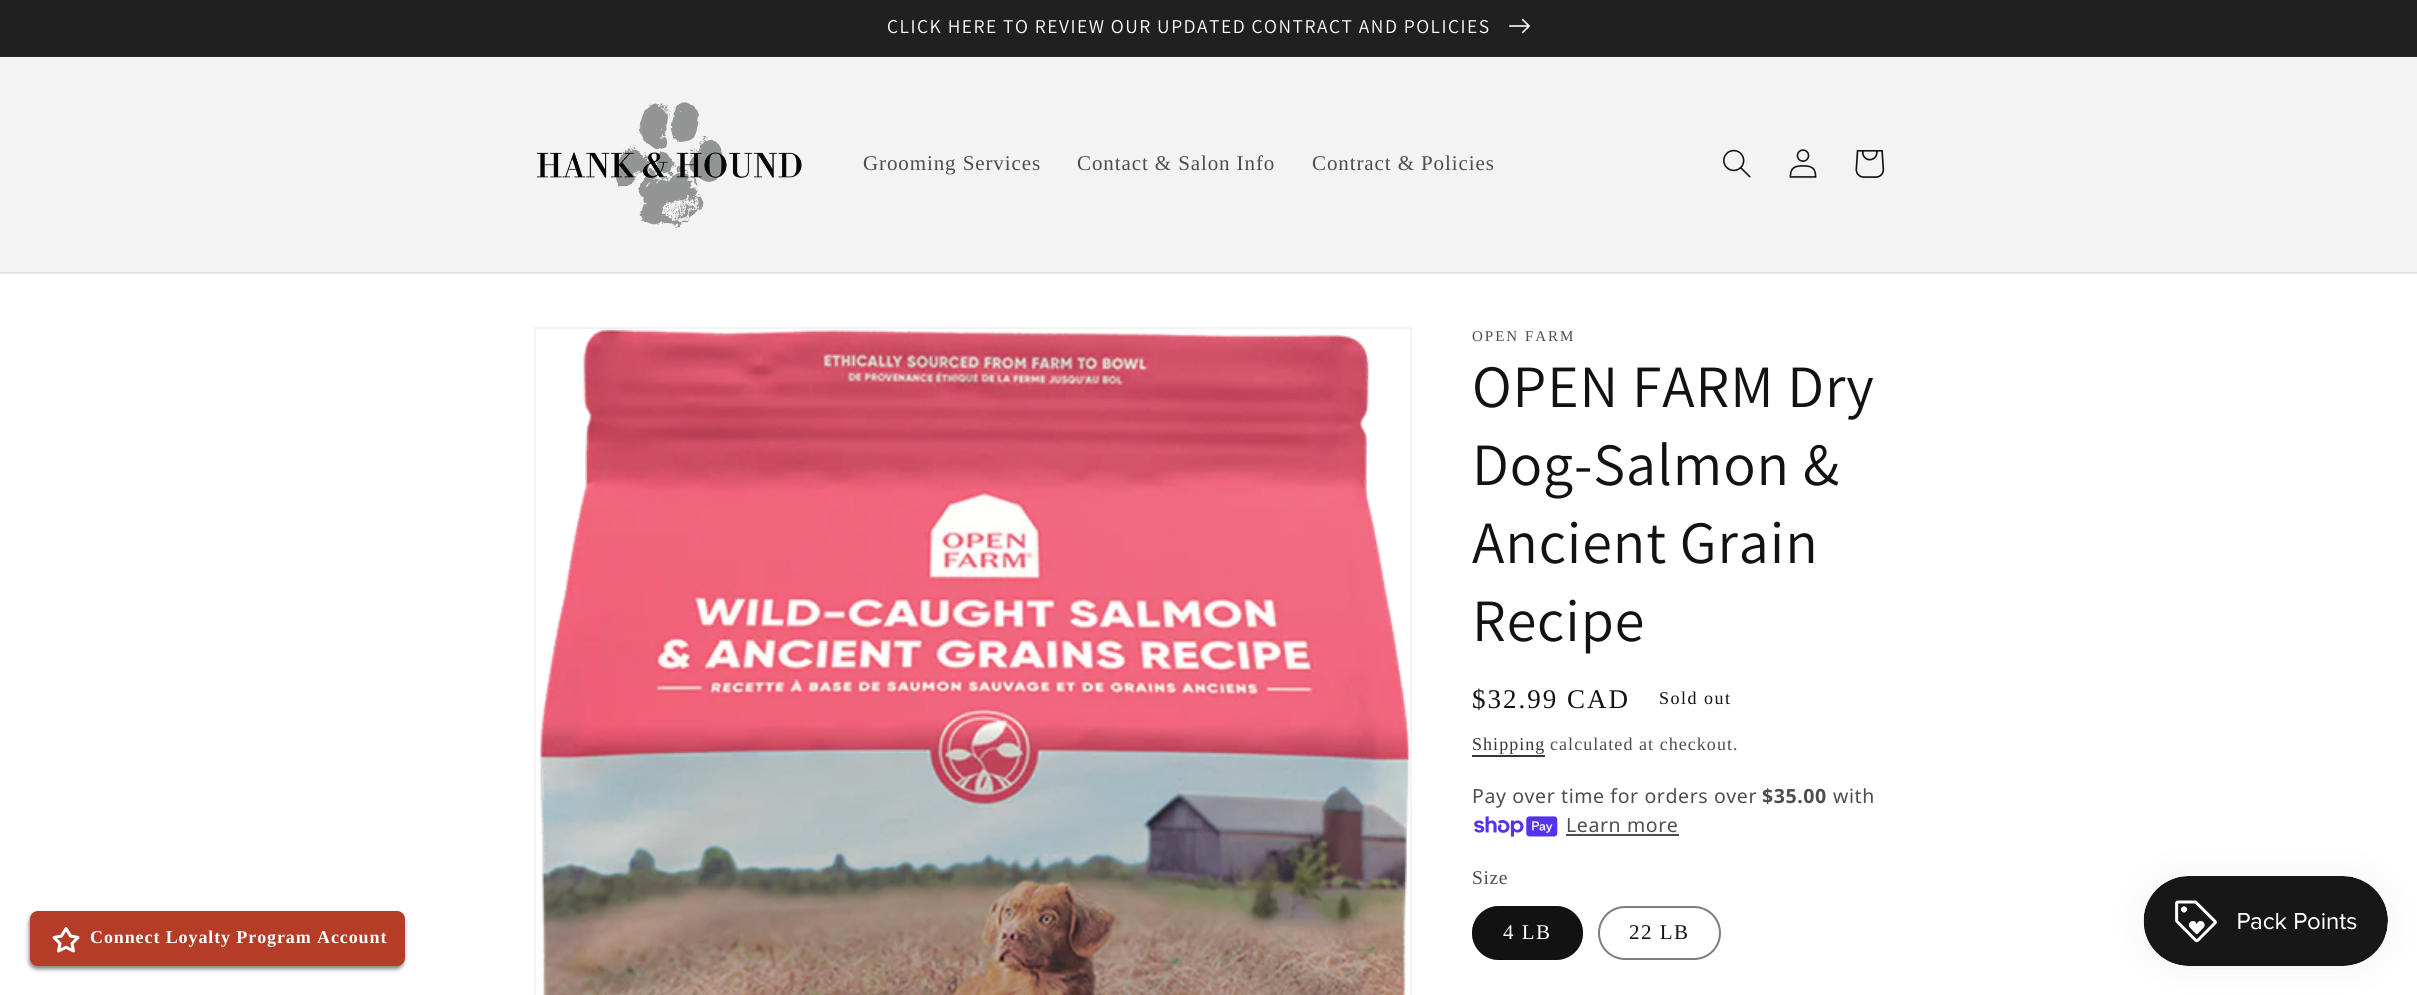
#include <cairo/cairo.h>
#include <math.h>
#include <stddef.h>

typedef struct { double x, y; const char *s; } line_t;
typedef struct { double x, y, w, h; unsigned color; } box_t;
static cairo_t *cr;

static void rgb(unsigned color)
{
	cairo_set_source_rgb(cr, (color >> 16) / 255.0, (color >> 8 & 255) / 255.0, (color & 255) / 255.0);
}

static void tracked(double x, double y, const char *s, double letter, double word)
{
	cairo_move_to(cr, x, y);
	while (*s) {
		char ch[5] = {0};
		int n = 0;
		do ch[n++] = *s++; while ((*s & 0xC0) == 0x80);
		cairo_show_text(cr, ch);
		cairo_rel_move_to(cr, letter + word * (*ch == ' '), 0);
	}
}

static void rrect(double x, double y, double w, double h, double r)
{
	cairo_new_sub_path(cr);
	cairo_arc(cr, x + w - r, y + h - r, r, 0, M_PI / 2);
	cairo_arc(cr, x + r, y + h - r, r, M_PI / 2, M_PI);
	cairo_arc(cr, x + r, y + r, r, M_PI, 1.5 * M_PI);
	cairo_arc(cr, x + w - r, y + r, r, 1.5 * M_PI, 2 * M_PI);
	cairo_close_path(cr);
}

static void soft_shadow(double x, double y, double w, double h, double r, double blur, double alpha)
{
	cairo_push_group_with_content(cr, CAIRO_CONTENT_ALPHA);
	cairo_set_operator(cr, CAIRO_OPERATOR_SOURCE);
	for (int i = 15; i >= -15 && fmin(w, h) + blur * i / 3 > 0; i -= 2) {
		double e = blur * i / 6;
		cairo_set_source_rgba(cr, 0, 0, 0, alpha * erfc((i - 1) / 8.5) / 2);
		rrect(x - e, y - e, w + 2 * e, h + 2 * e, fmax(0, fmin(r + e + blur * .6, fmin(w, h) / 2 + e)));
		cairo_fill(cr);
	}
	cairo_pattern_t *soft = cairo_pop_group(cr);
	cairo_mask(cr, soft);
	cairo_pattern_destroy(soft);
}

static void image(const char *path, double x, double y, double w, double h)
{
	cairo_surface_t *image = cairo_image_surface_create_from_png(path);
	cairo_save(cr);
	cairo_set_source_surface(cr, image, x, y);
	cairo_rectangle(cr, x, y, w, h);
	cairo_fill(cr);
	cairo_restore(cr);
	cairo_surface_destroy(image);
}

int main(void) {
	cairo_surface_t *surface = cairo_image_surface_create(CAIRO_FORMAT_RGB24, 2417, 995);
	cr = cairo_create(surface);
	cairo_font_options_t *options = cairo_font_options_create();
	cairo_font_options_set_hint_metrics(options, CAIRO_HINT_METRICS_OFF);
	cairo_font_options_set_hint_style(options, CAIRO_HINT_STYLE_NONE);
	cairo_set_font_options(cr, options);
	cairo_set_miter_limit(cr, 4);
	rgb(0xffffff);
	cairo_paint(cr);
	{
		static const box_t items[] = {
			{0, 273, 2417, 1, 0xececec},
			{0, 56, 2417, 1, 0x252525},
			{0, 0, 2417, 56, 0x202020},
		};
		for (size_t i = 0; i < sizeof items / sizeof *items; i++) {
			rgb(items[i].color);
			cairo_rectangle(cr, items[i].x, items[i].y, items[i].w, items[i].h);
			cairo_fill(cr);
		}
	}
	image("img/1.png", 1509, 18, 21, 16);
	{
		static const box_t items[] = {
			{0, 58, 2417, 214, 0xf3f3f3},
			{0, 57, 2417, 1, 0xf4f4f4},
			{0, 272, 2417, 1, 0xe1e1e1},
		};
		for (size_t i = 0; i < sizeof items / sizeof *items; i++) {
			rgb(items[i].color);
			cairo_rectangle(cr, items[i].x, items[i].y, items[i].w, items[i].h);
			cairo_fill(cr);
		}
	}
	image("img/2.png", 536, 100, 266, 129);
	image("img/3.png", 1723, 149, 28, 29);
	image("img/4.png", 1789, 149, 28, 29);
	image("img/5.png", 1855, 150, 30, 28);
	rgb(0x000000);
	soft_shadow(29, 914, 375, 55, 8, 2, 0.5);
	rgb(0xb53c27);
	rrect(30, 911, 375, 55, 8);
	cairo_fill(cr);
	image("img/6.png", 52, 927, 28, 26);
	cairo_rectangle(cr, 535, 328, 876, 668);
	rgb(0xf3f3f3);
	cairo_stroke(cr);
	image("img/7.png", 540, 328, 870, 667);
	rgb(0x363636);
	cairo_rectangle(cr, 1472, 755, 73, 2);
	cairo_fill(cr);
	image("img/8.png", 1474, 816, 84, 21);
	rgb(0x4d4d4d);
	cairo_rectangle(cr, 1566, 834, 113, 2);
	cairo_fill(cr);
	rgb(0x121212);
	rrect(1472, 906, 111, 54, 27);
	cairo_fill(cr);
	rrect(1473, 907, 109, 52, 26);
	cairo_set_source_rgba(cr, 0.071, 0.071, 0.071, 0.55);
	cairo_stroke(cr);
	rrect(1599, 907, 121, 52, 26);
	rgb(0x7d7d7d);
	cairo_stroke(cr);
	rgb(0x000000);
	soft_shadow(2144, 876, 244, 90, 45, 19, 0.05);
	image("img/9.png", 2143, 876, 245, 90);
	cairo_select_font_face(cr, "Assistant", CAIRO_FONT_SLANT_NORMAL, CAIRO_FONT_WEIGHT_NORMAL);
	cairo_set_font_size(cr, 19.5);
	rgb(0xffffff);
	tracked(887, 33, "CLICK HERE TO REVIEW OUR UPDATED CONTRACT AND POLICIES", 1.5, 0);
	cairo_select_font_face(cr, "Liberation Serif", CAIRO_FONT_SLANT_NORMAL, CAIRO_FONT_WEIGHT_NORMAL);
	cairo_set_font_size(cr, 21);
	rgb(0x4d4d4d);
	{
		static const line_t items[] = {
			{863, 170, "Grooming Services"},
			{1077, 170, "Contact & Salon Info"},
			{1312, 170, "Contract & Policies"},
		};
		for (size_t i = 0; i < sizeof items / sizeof *items; i++) {
			tracked(items[i].x, items[i].y, items[i].s, 0.9, 0);
		}
	}
	cairo_select_font_face(cr, "Liberation Serif", CAIRO_FONT_SLANT_NORMAL, CAIRO_FONT_WEIGHT_BOLD);
	cairo_set_font_size(cr, 18);
	rgb(0xffffff);
	tracked(90, 943, "Connect Loyalty Program Account", 0.9, 0);
	cairo_select_font_face(cr, "Liberation Serif", CAIRO_FONT_SLANT_NORMAL, CAIRO_FONT_WEIGHT_NORMAL);
	cairo_set_font_size(cr, 15);
	rgb(0x4d4d4d);
	tracked(1472, 341, "OPEN FARM", 2, 0);
	cairo_select_font_face(cr, "Assistant", CAIRO_FONT_SLANT_NORMAL, CAIRO_FONT_WEIGHT_NORMAL);
	cairo_set_font_size(cr, 60);
	rgb(0x121212);
	{
		static const line_t items[] = {
			{1472, 407, "OPEN FARM Dry"},
			{1472, 485, "Dog-Salmon &"},
			{1472, 563, "Ancient Grain"},
			{1472, 641, "Recipe"},
		};
		for (size_t i = 0; i < sizeof items / sizeof *items; i++) {
			tracked(items[i].x, items[i].y, items[i].s, 0.9, 0);
		}
	}
	cairo_select_font_face(cr, "Liberation Serif", CAIRO_FONT_SLANT_NORMAL, CAIRO_FONT_WEIGHT_NORMAL);
	cairo_set_font_size(cr, 27);
	tracked(1472, 708, "$32.99 CAD", 2, 0);
	cairo_set_font_size(cr, 18);
	tracked(1659, 704, "Sold out", 1.5, 0);
	rgb(0x363636);
	tracked(1472, 750, "Shipping", 1.05, 0);
	rgb(0x4d4d4d);
	tracked(1550, 750, "calculated at checkout.", 1.05, 0);
	cairo_select_font_face(cr, "Noto Sans", CAIRO_FONT_SLANT_NORMAL, CAIRO_FONT_WEIGHT_NORMAL);
	cairo_set_font_size(cr, 19.5);
	tracked(1472, 803, "Pay over time for orders over", 0.6, 0);
	cairo_select_font_face(cr, "Noto Sans", CAIRO_FONT_SLANT_NORMAL, CAIRO_FONT_WEIGHT_BOLD);
	tracked(1762, 803, "$35.00", 0.6, 0);
	cairo_select_font_face(cr, "Noto Sans", CAIRO_FONT_SLANT_NORMAL, CAIRO_FONT_WEIGHT_NORMAL);
	tracked(1833, 803, "with", 0.6, 0);
	tracked(1566, 832, "Learn more", 0.6, 0);
	cairo_select_font_face(cr, "Liberation Serif", CAIRO_FONT_SLANT_NORMAL, CAIRO_FONT_WEIGHT_NORMAL);
	tracked(1472, 884, "Size", 0.6, 0);
	cairo_set_font_size(cr, 21);
	rgb(0xffffff);
	tracked(1503, 939, "4 LB", 1.5, 0);
	rgb(0x121212);
	tracked(1629, 939, "22 LB", 1.5, 0);
	cairo_surface_write_to_png(surface, "page.png");
	cairo_font_options_destroy(options);
	cairo_destroy(cr);
	cairo_surface_destroy(surface);
	return 0;
}
